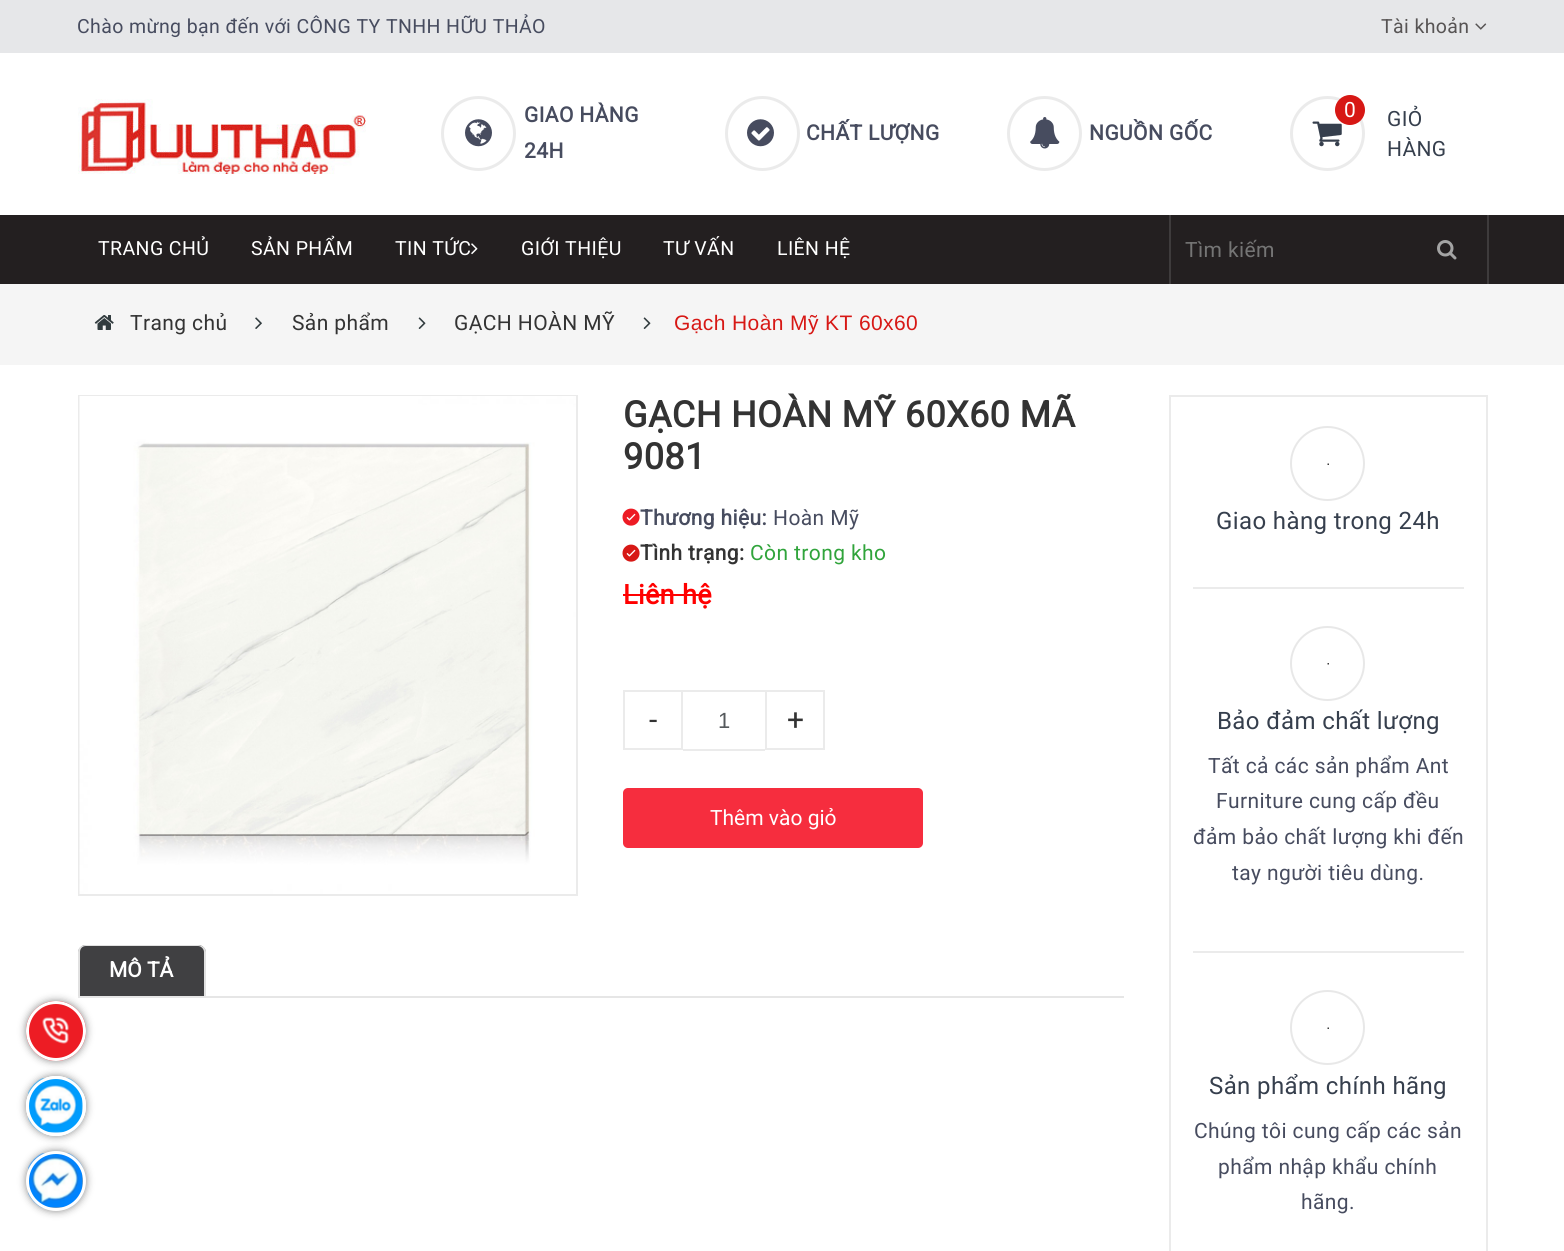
#include <cairo/cairo.h>
#include <math.h>
#include <stddef.h>

typedef struct { double x, y; const char *s; } line_t;
static cairo_t *cr;

static void rgb(unsigned color)
{
	cairo_set_source_rgb(cr, (color >> 16) / 255.0, (color >> 8 & 255) / 255.0, (color & 255) / 255.0);
}

static void tracked(double x, double y, const char *s, double letter, double word)
{
	cairo_move_to(cr, x, y);
	while (*s) {
		char ch[5] = {0};
		int n = 0;
		do ch[n++] = *s++; while ((*s & 0xC0) == 0x80);
		cairo_show_text(cr, ch);
		cairo_rel_move_to(cr, letter + word * (*ch == ' '), 0);
	}
}

static void rrect(double x, double y, double w, double h, double r)
{
	cairo_new_sub_path(cr);
	cairo_arc(cr, x + w - r, y + h - r, r, 0, M_PI / 2);
	cairo_arc(cr, x + r, y + h - r, r, M_PI / 2, M_PI);
	cairo_arc(cr, x + r, y + r, r, M_PI, 1.5 * M_PI);
	cairo_arc(cr, x + w - r, y + r, r, 1.5 * M_PI, 2 * M_PI);
	cairo_close_path(cr);
}

static void soft_shadow(double x, double y, double w, double h, double r, double blur, double alpha)
{
	cairo_push_group_with_content(cr, CAIRO_CONTENT_ALPHA);
	cairo_set_operator(cr, CAIRO_OPERATOR_SOURCE);
	for (int i = 15; i >= -15 && fmin(w, h) + blur * i / 3 > 0; i -= 2) {
		double e = blur * i / 6;
		cairo_set_source_rgba(cr, 0, 0, 0, alpha * erfc((i - 1) / 8.5) / 2);
		rrect(x - e, y - e, w + 2 * e, h + 2 * e, fmax(0, fmin(r + e + blur * .6, fmin(w, h) / 2 + e)));
		cairo_fill(cr);
	}
	cairo_pattern_t *soft = cairo_pop_group(cr);
	cairo_mask(cr, soft);
	cairo_pattern_destroy(soft);
}

static void image(const char *path, double x, double y, double w, double h)
{
	cairo_surface_t *image = cairo_image_surface_create_from_png(path);
	cairo_save(cr);
	cairo_set_source_surface(cr, image, x, y);
	cairo_rectangle(cr, x, y, w, h);
	cairo_fill(cr);
	cairo_restore(cr);
	cairo_surface_destroy(image);
}

int main(void) {
	cairo_surface_t *surface = cairo_image_surface_create(CAIRO_FORMAT_RGB24, 1564, 1251);
	cr = cairo_create(surface);
	cairo_font_options_t *options = cairo_font_options_create();
	cairo_font_options_set_hint_metrics(options, CAIRO_HINT_METRICS_OFF);
	cairo_font_options_set_hint_style(options, CAIRO_HINT_STYLE_NONE);
	cairo_set_font_options(cr, options);
	cairo_set_miter_limit(cr, 4);
	rgb(0xffffff);
	cairo_paint(cr);
	rgb(0xe6e7e9);
	cairo_rectangle(cr, 0, 0, 1564, 53);
	cairo_fill(cr);
	image("img/1.png", 1475, 23, 12, 7);
	image("img/2.png", 78, 99, 288, 75);
	cairo_arc(cr, 478.5, 133.5, 36, 0, 2 * M_PI);
	rgb(0xebebeb);
	cairo_set_line_width(cr, 3);
	cairo_stroke(cr);
	image("img/3.png", 465, 119, 27, 28);
	cairo_arc(cr, 762.5, 133.5, 36, 0, 2 * M_PI);
	cairo_stroke(cr);
	image("img/4.png", 747, 119, 27, 28);
	cairo_arc(cr, 1044.5, 133.5, 36, 0, 2 * M_PI);
	cairo_stroke(cr);
	image("img/5.png", 1030, 117, 30, 32);
	cairo_arc(cr, 1327.5, 133.5, 36, 0, 2 * M_PI);
	cairo_stroke(cr);
	image("img/6.png", 1312, 121, 30, 26);
	rgb(0xd71815);
	cairo_arc(cr, 1350, 110, 15, 0, 2 * M_PI);
	cairo_fill(cr);
	rgb(0x231f20);
	cairo_rectangle(cr, 0, 215, 1564, 69);
	cairo_fill(cr);
	image("img/7.png", 471, 243, 7, 12);
	rgb(0x3e3b3c);
	cairo_rectangle(cr, 1487, 215, 2, 69);
	cairo_fill(cr);
	cairo_rectangle(cr, 1169, 215, 2, 69);
	cairo_fill(cr);
	image("img/8.png", 1437, 240, 20, 20);
	rgb(0xf5f5f5);
	cairo_rectangle(cr, 0, 284, 1564, 81);
	cairo_fill(cr);
	image("img/9.png", 94, 315, 20, 15);
	image("img/10.png", 255, 317, 7, 12);
	image("img/11.png", 418, 317, 8, 12);
	image("img/11.png", 643, 317, 8, 12);
	rgb(0xe6e6e6);
	cairo_rectangle(cr, 78, 996, 1046, 2);
	cairo_fill(cr);
	rgb(0x404042);
	cairo_new_path(cr);
	cairo_move_to(cr, 86, 945);
	cairo_line_to(cr, 198, 945);
	cairo_curve_to(cr, 202.5, 945, 206, 948.5, 206, 953);
	cairo_line_to(cr, 206, 996);
	cairo_line_to(cr, 78, 996);
	cairo_line_to(cr, 78, 953);
	cairo_curve_to(cr, 78, 948.5, 81.5, 945, 86, 945);
	cairo_close_path(cr);
	cairo_fill(cr);
	rgb(0xe1e1e1);
	cairo_set_fill_rule(cr, CAIRO_FILL_RULE_EVEN_ODD);
	cairo_new_path(cr);
	cairo_move_to(cr, 86, 945);
	cairo_line_to(cr, 198, 945);
	cairo_curve_to(cr, 202, 945, 206, 948, 206, 952);
	cairo_line_to(cr, 206, 996);
	cairo_line_to(cr, 78, 996);
	cairo_line_to(cr, 78, 952);
	cairo_curve_to(cr, 78, 948, 81, 945, 86, 945);
	cairo_close_path(cr);
	cairo_move_to(cr, 86, 946);
	cairo_line_to(cr, 198, 946);
	cairo_curve_to(cr, 201, 946, 204, 949, 204, 952);
	cairo_line_to(cr, 204, 996);
	cairo_line_to(cr, 80, 996);
	cairo_line_to(cr, 80, 952);
	cairo_curve_to(cr, 80, 949, 82, 946, 86, 946);
	cairo_close_path(cr);
	cairo_fill(cr);
	rgb(0x888888);
	soft_shadow(26, 1001, 60, 60, 30, 4, 1);
	rgb(0xed1c24);
	cairo_arc(cr, 56, 1031, 30, 0, 2 * M_PI);
	cairo_fill(cr);
	image("img/12.png", 42, 1017, 27, 27);
	cairo_arc(cr, 56, 1031, 28.5, 0, 2 * M_PI);
	rgb(0xffffff);
	cairo_stroke(cr);
	cairo_save(cr);
	cairo_new_path(cr);
	cairo_move_to(cr, 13, 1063);
	cairo_line_to(cr, 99, 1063);
	cairo_line_to(cr, 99, 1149);
	cairo_line_to(cr, 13, 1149);
	cairo_close_path(cr);
	cairo_move_to(cr, 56, 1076);
	cairo_curve_to(cr, 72.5, 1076, 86, 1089.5, 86, 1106);
	cairo_curve_to(cr, 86, 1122.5, 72.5, 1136, 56, 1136);
	cairo_curve_to(cr, 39.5, 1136, 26, 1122.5, 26, 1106);
	cairo_curve_to(cr, 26, 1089.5, 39.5, 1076, 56, 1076);
	cairo_close_path(cr);
	cairo_clip(cr);
	rgb(0x888888);
	soft_shadow(26, 1076, 60, 60, 30, 4, 1);
	cairo_restore(cr);
	image("img/13.png", 28, 1078, 55, 55);
	cairo_arc(cr, 56, 1106, 28.5, 0, 2 * M_PI);
	cairo_stroke(cr);
	rgb(0x888888);
	soft_shadow(26, 1151, 60, 60, 30, 4, 1);
	image("img/14.png", 28, 1153, 55, 55);
	cairo_arc(cr, 56, 1181, 28.5, 0, 2 * M_PI);
	rgb(0xffffff);
	cairo_stroke(cr);
	cairo_rectangle(cr, 79, 396, 498, 499);
	rgb(0xebebeb);
	cairo_set_line_width(cr, 2);
	cairo_stroke(cr);
	image("img/15.png", 79, 396, 497, 498);
	image("img/16.png", 622, 508, 18, 18);
	image("img/17.png", 622, 544, 18, 18);
	rgb(0xff0000);
	cairo_rectangle(cr, 623, 594, 88, 2);
	cairo_fill(cr);
	cairo_rectangle(cr, 624, 691, 58, 58);
	rgb(0xebebeb);
	cairo_stroke(cr);
	cairo_rectangle(cr, 683, 690, 82, 2);
	cairo_fill(cr);
	cairo_rectangle(cr, 683, 749, 82, 2);
	cairo_fill(cr);
	cairo_rectangle(cr, 766, 691, 58, 58);
	cairo_stroke(cr);
	rgb(0xf62d3e);
	rrect(623, 788, 300, 60, 5);
	cairo_fill(cr);
	cairo_rectangle(cr, 1170, 396, 317, 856);
	rgb(0xebebeb);
	cairo_stroke(cr);
	cairo_rectangle(cr, 1193, 587, 271, 2);
	cairo_fill(cr);
	cairo_arc(cr, 1327.5, 463.5, 36.5, 0, 2 * M_PI);
	rgb(0xe8e8e8);
	cairo_stroke(cr);
	image("img/18.png", 1327, 463, 2, 2);
	rgb(0xebebeb);
	cairo_rectangle(cr, 1193, 951, 271, 2);
	cairo_fill(cr);
	cairo_arc(cr, 1327.5, 663.5, 36.5, 0, 2 * M_PI);
	rgb(0xe8e8e8);
	cairo_stroke(cr);
	image("img/19.png", 1327, 663, 2, 2);
	cairo_arc(cr, 1327.5, 1027.5, 36.5, 0, 2 * M_PI);
	cairo_stroke(cr);
	image("img/18.png", 1327, 1027, 2, 2);
	cairo_select_font_face(cr, "Roboto", CAIRO_FONT_SLANT_NORMAL, CAIRO_FONT_WEIGHT_NORMAL);
	cairo_set_font_size(cr, 19.5);
	rgb(0x474c5f);
	tracked(77, 33, "Chào mừng bạn đến với CÔNG TY TNHH HỮU THẢO", 0.4, 0);
	rgb(0x575454);
	tracked(1381, 33, "Tài khoản", 0.4, 0);
	cairo_select_font_face(cr, "Roboto", CAIRO_FONT_SLANT_NORMAL, CAIRO_FONT_WEIGHT_BOLD);
	cairo_set_font_size(cr, 21);
	rgb(0x474c5f);
	{
		static const line_t items[] = {
			{524, 122, "GIAO HÀNG"},
			{524, 158, "24H"},
			{806, 140, "CHẤT LƯỢNG"},
			{1089, 140, "NGUỒN GỐC"},
		};
		for (size_t i = 0; i < sizeof items / sizeof *items; i++) {
			tracked(items[i].x, items[i].y, items[i].s, 0.4, 0);
		}
	}
	cairo_select_font_face(cr, "Roboto", CAIRO_FONT_SLANT_NORMAL, CAIRO_FONT_WEIGHT_NORMAL);
	rgb(0xffffff);
	tracked(1344, 117, "0", 0.4, 0);
	rgb(0x363f4d);
	tracked(1387, 126, "GIỎ", 0.4, 0);
	tracked(1387, 156, "HÀNG", 0.4, 0);
	cairo_set_font_size(cr, 19.5);
	rgb(0xffffff);
	{
		static const line_t items[] = {
			{98, 255, "TRANG CHỦ"},
			{251, 255, "SẢN PHẨM"},
			{395, 255, "TIN TỨC"},
			{521, 255, "GIỚI THIỆU"},
			{663, 255, "TƯ VẤN"},
			{777, 255, "LIÊN HỆ"},
		};
		for (size_t i = 0; i < sizeof items / sizeof *items; i++) {
			tracked(items[i].x, items[i].y, items[i].s, 0.4, 0);
		}
	}
	cairo_set_font_size(cr, 21);
	rgb(0x757575);
	tracked(1185, 257, "Tìm kiếm", 0.4, 0);
	rgb(0x333333);
	{
		static const line_t items[] = {
			{130, 330, "Trang chủ"},
			{292, 330, "Sản phẩm"},
			{454, 330, "GẠCH HOÀN MỸ"},
		};
		for (size_t i = 0; i < sizeof items / sizeof *items; i++) {
			tracked(items[i].x, items[i].y, items[i].s, 0.4, 0);
		}
	}
	cairo_select_font_face(cr, "Liberation Sans", CAIRO_FONT_SLANT_NORMAL, CAIRO_FONT_WEIGHT_NORMAL);
	rgb(0xd71815);
	tracked(674, 330, "Gạch Hoàn Mỹ KT 60x60", 0.4, 0);
	cairo_select_font_face(cr, "Roboto", CAIRO_FONT_SLANT_NORMAL, CAIRO_FONT_WEIGHT_BOLD);
	cairo_set_font_size(cr, 36);
	rgb(0x333333);
	tracked(623, 427, "GẠCH HOÀN MỸ 60X60 MÃ", 0.4, 0);
	tracked(623, 469, "9081", 0.4, 0);
	cairo_set_font_size(cr, 21);
	rgb(0x474c5f);
	tracked(640, 525, "Thương hiệu:", 0.4, 0);
	cairo_select_font_face(cr, "Roboto", CAIRO_FONT_SLANT_NORMAL, CAIRO_FONT_WEIGHT_NORMAL);
	tracked(773, 525, "Hoàn Mỹ", 0.4, 0);
	cairo_select_font_face(cr, "Roboto", CAIRO_FONT_SLANT_NORMAL, CAIRO_FONT_WEIGHT_BOLD);
	rgb(0x333333);
	tracked(640, 560, "Tình trạng:", 0.4, 0);
	cairo_select_font_face(cr, "Roboto", CAIRO_FONT_SLANT_NORMAL, CAIRO_FONT_WEIGHT_NORMAL);
	rgb(0x30a43b);
	tracked(750, 560, "Còn trong kho", 0.4, 0);
	cairo_select_font_face(cr, "Roboto", CAIRO_FONT_SLANT_NORMAL, CAIRO_FONT_WEIGHT_BOLD);
	cairo_set_font_size(cr, 27);
	rgb(0xff0000);
	tracked(623, 604, "Liên hệ", 0.4, 0);
	cairo_select_font_face(cr, "Roboto", CAIRO_FONT_SLANT_NORMAL, CAIRO_FONT_WEIGHT_NORMAL);
	cairo_set_font_size(cr, 30);
	rgb(0x333333);
	tracked(649, 730, "-", 0.4, 0);
	cairo_select_font_face(cr, "Liberation Sans", CAIRO_FONT_SLANT_NORMAL, CAIRO_FONT_WEIGHT_NORMAL);
	cairo_set_font_size(cr, 22);
	rgb(0x55595c);
	tracked(718, 728, "1", 0.4, 0);
	cairo_select_font_face(cr, "Roboto", CAIRO_FONT_SLANT_NORMAL, CAIRO_FONT_WEIGHT_NORMAL);
	cairo_set_font_size(cr, 30);
	rgb(0x333333);
	tracked(787, 730, "+", 0.4, 0);
	cairo_set_font_size(cr, 21);
	rgb(0xffffff);
	cairo_move_to(cr, 710, 825);
	cairo_show_text(cr, "Thêm vào giỏ");
	cairo_select_font_face(cr, "Roboto", CAIRO_FONT_SLANT_NORMAL, CAIRO_FONT_WEIGHT_BOLD);
	cairo_move_to(cr, 109, 977);
	cairo_show_text(cr, "MÔ TẢ");
	cairo_select_font_face(cr, "Roboto", CAIRO_FONT_SLANT_NORMAL, CAIRO_FONT_WEIGHT_NORMAL);
	cairo_set_font_size(cr, 24);
	rgb(0x363f4d);
	tracked(1216, 529, "Giao hàng trong 24h", 0.4, 0);
	tracked(1217, 729, "Bảo đảm chất lượng", 0.4, 0);
	cairo_set_font_size(cr, 21);
	rgb(0x474c5f);
	{
		static const line_t items[] = {
			{1208, 773, "Tất cả các sản phẩm Ant"},
			{1216, 808, "Furniture cung cấp đều"},
			{1193, 844, "đảm bảo chất lượng khi đến"},
			{1232, 880, "tay người tiêu dùng."},
		};
		for (size_t i = 0; i < sizeof items / sizeof *items; i++) {
			tracked(items[i].x, items[i].y, items[i].s, 0.4, 0);
		}
	}
	cairo_set_font_size(cr, 24);
	rgb(0x363f4d);
	tracked(1209, 1094, "Sản phẩm chính hãng", 0.4, 0);
	cairo_set_font_size(cr, 21);
	rgb(0x474c5f);
	{
		static const line_t items[] = {
			{1194, 1138, "Chúng tôi cung cấp các sản"},
			{1218, 1174, "phẩm nhập khẩu chính"},
			{1301, 1209, "hãng."},
		};
		for (size_t i = 0; i < sizeof items / sizeof *items; i++) {
			tracked(items[i].x, items[i].y, items[i].s, 0.4, 0);
		}
	}
	cairo_surface_write_to_png(surface, "page.png");
	cairo_font_options_destroy(options);
	cairo_destroy(cr);
	cairo_surface_destroy(surface);
	return 0;
}
